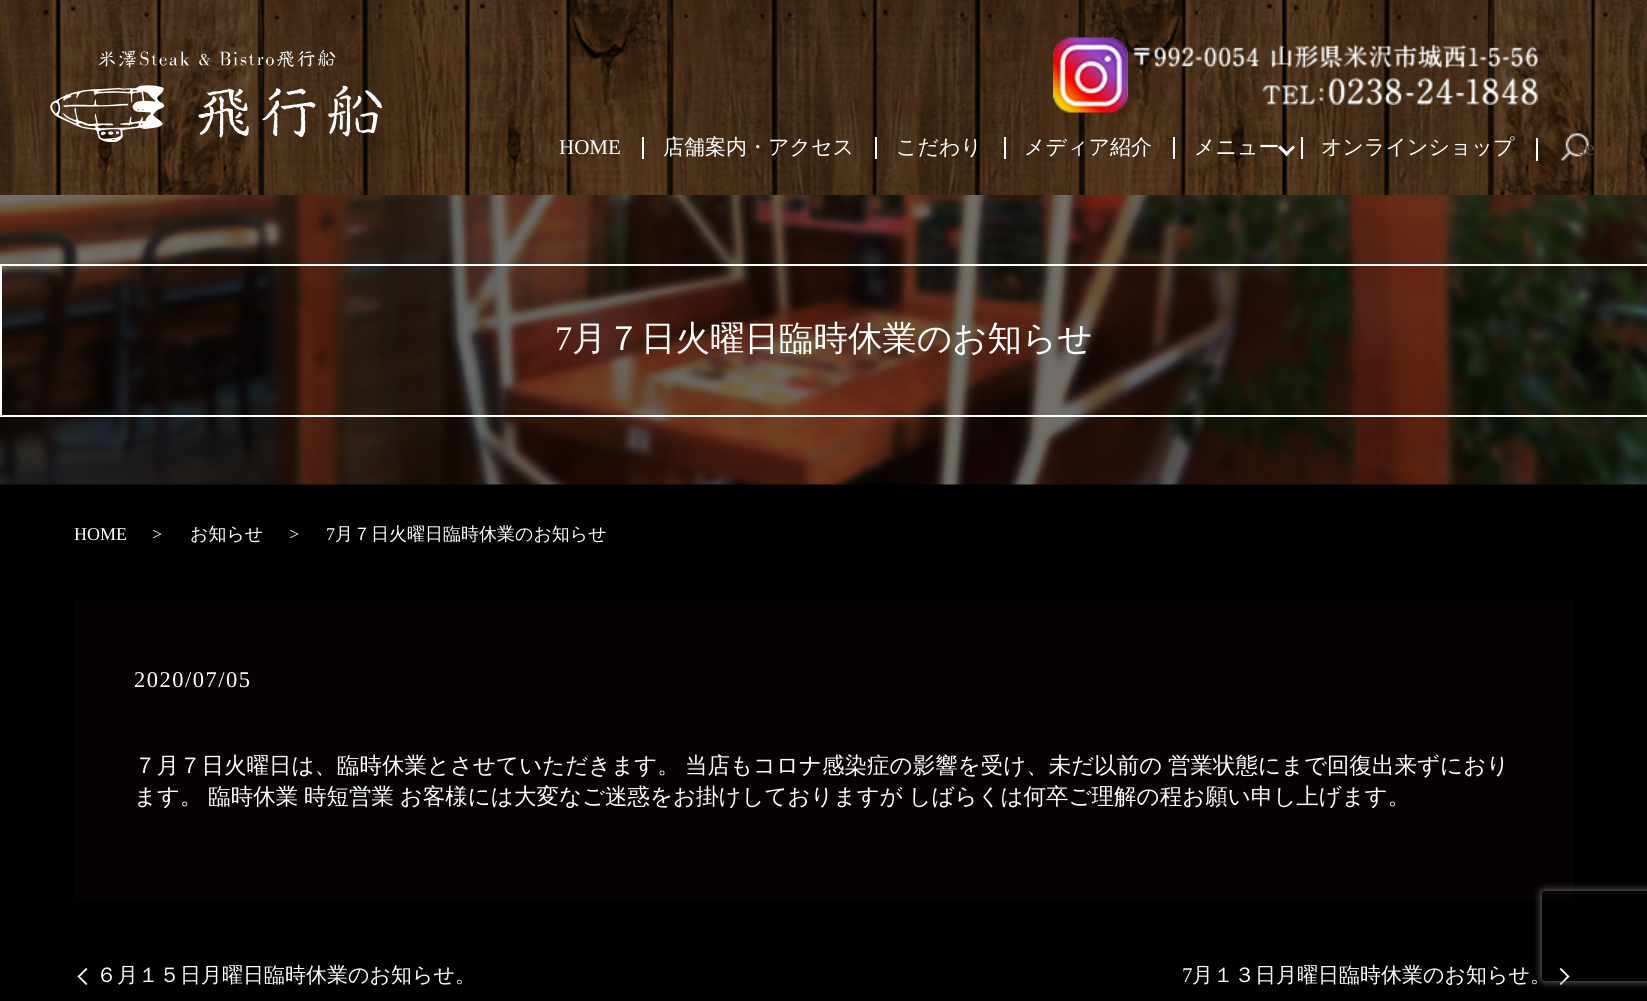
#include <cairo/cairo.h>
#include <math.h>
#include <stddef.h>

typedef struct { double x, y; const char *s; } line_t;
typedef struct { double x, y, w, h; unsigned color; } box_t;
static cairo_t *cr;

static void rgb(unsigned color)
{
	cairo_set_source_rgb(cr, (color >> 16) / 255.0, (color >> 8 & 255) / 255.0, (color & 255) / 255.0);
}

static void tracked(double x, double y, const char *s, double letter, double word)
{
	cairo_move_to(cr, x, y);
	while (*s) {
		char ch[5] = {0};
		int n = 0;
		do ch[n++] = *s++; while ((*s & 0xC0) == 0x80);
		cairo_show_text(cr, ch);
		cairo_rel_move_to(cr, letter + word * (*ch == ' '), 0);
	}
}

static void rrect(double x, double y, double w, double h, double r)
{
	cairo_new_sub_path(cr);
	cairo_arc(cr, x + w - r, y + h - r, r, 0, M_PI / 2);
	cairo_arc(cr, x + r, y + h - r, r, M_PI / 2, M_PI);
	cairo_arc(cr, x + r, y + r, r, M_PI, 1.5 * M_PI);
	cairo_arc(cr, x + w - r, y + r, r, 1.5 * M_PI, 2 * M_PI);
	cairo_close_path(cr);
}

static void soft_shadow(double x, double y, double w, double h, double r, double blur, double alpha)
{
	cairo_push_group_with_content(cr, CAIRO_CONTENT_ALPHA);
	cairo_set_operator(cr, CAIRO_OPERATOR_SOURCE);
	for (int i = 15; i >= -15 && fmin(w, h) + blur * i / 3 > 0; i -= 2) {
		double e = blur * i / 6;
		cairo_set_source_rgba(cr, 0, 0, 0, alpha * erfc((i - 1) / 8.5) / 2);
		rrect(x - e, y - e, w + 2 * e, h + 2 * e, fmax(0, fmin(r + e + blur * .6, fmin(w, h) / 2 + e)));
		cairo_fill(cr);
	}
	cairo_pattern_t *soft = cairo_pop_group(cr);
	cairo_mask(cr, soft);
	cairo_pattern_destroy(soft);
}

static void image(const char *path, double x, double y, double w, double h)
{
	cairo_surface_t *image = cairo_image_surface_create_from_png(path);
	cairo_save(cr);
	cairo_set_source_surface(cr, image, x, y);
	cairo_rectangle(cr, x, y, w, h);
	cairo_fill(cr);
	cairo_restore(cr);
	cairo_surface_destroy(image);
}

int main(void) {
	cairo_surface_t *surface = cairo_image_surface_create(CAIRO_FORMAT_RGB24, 1647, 1001);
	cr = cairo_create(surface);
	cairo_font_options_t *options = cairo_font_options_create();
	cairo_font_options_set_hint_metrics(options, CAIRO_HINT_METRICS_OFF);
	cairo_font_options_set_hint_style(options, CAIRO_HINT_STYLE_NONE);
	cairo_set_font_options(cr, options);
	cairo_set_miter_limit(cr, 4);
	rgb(0x000000);
	cairo_paint(cr);
	image("img/1.png", 0, 0, 1647, 195);
	image("img/2.png", 50, 50, 332, 93);
	image("img/3.png", 1053, 37, 75, 76);
	image("img/4.png", 1132, 45, 406, 60);
	{
		static const box_t items[] = {
			{642, 137, 2, 22, 0xffffff},
			{875, 137, 2, 22, 0xffffff},
			{1004, 137, 2, 22, 0xffffff},
			{1173, 137, 2, 22, 0xffffff},
		};
		for (size_t i = 0; i < sizeof items / sizeof *items; i++) {
			rgb(items[i].color);
			cairo_rectangle(cr, items[i].x, items[i].y, items[i].w, items[i].h);
			cairo_fill(cr);
		}
	}
	cairo_new_path(cr);
	cairo_move_to(cr, 1295, 147.5);
	cairo_line_to(cr, 1286.5, 156);
	cairo_line_to(cr, 1284.5, 154);
	cairo_line_to(cr, 1293, 145.5);
	cairo_close_path(cr);
	cairo_fill(cr);
	cairo_new_path(cr);
	cairo_move_to(cr, 1289, 154);
	cairo_line_to(cr, 1286.5, 156);
	cairo_line_to(cr, 1278, 147.5);
	cairo_line_to(cr, 1280.5, 145.5);
	cairo_close_path(cr);
	cairo_fill(cr);
	cairo_rectangle(cr, 1301, 137, 2, 22);
	cairo_fill(cr);
	image("img/5.png", 1561, 133, 28, 28);
	cairo_rectangle(cr, 1536, 138, 2, 23);
	cairo_fill(cr);
	image("img/6.png", 0, 195, 1647, 290);
	cairo_rectangle(cr, 1, 265, 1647, 151);
	cairo_stroke(cr);
	rgb(0x070202);
	cairo_rectangle(cr, 74, 600, 1500, 302);
	cairo_fill(cr);
	rgb(0xffffff);
	cairo_new_path(cr);
	cairo_move_to(cr, 77.5, 976.5);
	cairo_line_to(cr, 86, 968);
	cairo_line_to(cr, 87.5, 969);
	cairo_line_to(cr, 79, 977.5);
	cairo_close_path(cr);
	cairo_fill(cr);
	cairo_new_path(cr);
	cairo_move_to(cr, 86, 985);
	cairo_line_to(cr, 77.5, 976.5);
	cairo_line_to(cr, 79, 975.5);
	cairo_line_to(cr, 87.5, 984);
	cairo_close_path(cr);
	cairo_fill(cr);
	cairo_new_path(cr);
	cairo_move_to(cr, 1561, 968);
	cairo_line_to(cr, 1569.5, 976.5);
	cairo_line_to(cr, 1568, 977.5);
	cairo_line_to(cr, 1559.5, 969);
	cairo_close_path(cr);
	cairo_fill(cr);
	cairo_new_path(cr);
	cairo_move_to(cr, 1569.5, 976.5);
	cairo_line_to(cr, 1561, 985);
	cairo_line_to(cr, 1559.5, 984);
	cairo_line_to(cr, 1568, 975.5);
	cairo_close_path(cr);
	cairo_fill(cr);
	cairo_save(cr);
	cairo_set_fill_rule(cr, CAIRO_FILL_RULE_EVEN_ODD);
	cairo_new_path(cr);
	cairo_move_to(cr, 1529, 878);
	cairo_line_to(cr, 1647, 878);
	cairo_line_to(cr, 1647, 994);
	cairo_line_to(cr, 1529, 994);
	cairo_close_path(cr);
	cairo_move_to(cr, 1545, 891);
	cairo_line_to(cr, 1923, 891);
	cairo_curve_to(cr, 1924.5, 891, 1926, 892.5, 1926, 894);
	cairo_line_to(cr, 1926, 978);
	cairo_curve_to(cr, 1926, 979.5, 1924.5, 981, 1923, 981);
	cairo_line_to(cr, 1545, 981);
	cairo_curve_to(cr, 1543.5, 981, 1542, 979.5, 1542, 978);
	cairo_line_to(cr, 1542, 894);
	cairo_curve_to(cr, 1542, 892.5, 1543.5, 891, 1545, 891);
	cairo_close_path(cr);
	cairo_clip(cr);
	rgb(0x808080);
	soft_shadow(1542, 891, 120, 90, 3, 4, 1);
	cairo_restore(cr);
	cairo_select_font_face(cr, "Liberation Serif", CAIRO_FONT_SLANT_NORMAL, CAIRO_FONT_WEIGHT_NORMAL);
	cairo_set_font_size(cr, 21);
	cairo_move_to(cr, 559, 154);
	cairo_show_text(cr, "HOME");
	cairo_select_font_face(cr, "WenQuanYi Zen Hei Medium", CAIRO_FONT_SLANT_NORMAL, CAIRO_FONT_WEIGHT_NORMAL);
	{
		static const line_t items[] = {
			{663, 154, "店舗案内・アクセス"},
			{896, 154, "こだわり"},
			{1024, 154, "メディア紹介"},
			{1194, 154, "メニュー"},
			{1321, 154, "オンラインショップ"},
		};
		for (size_t i = 0; i < sizeof items / sizeof *items; i++) {
			cairo_move_to(cr, items[i].x, items[i].y);
			cairo_show_text(cr, items[i].s);
		}
	}
	cairo_select_font_face(cr, "Liberation Serif", CAIRO_FONT_SLANT_NORMAL, CAIRO_FONT_WEIGHT_NORMAL);
	rgb(0x574536);
	cairo_move_to(cr, 1577, 155);
	cairo_show_text(cr, "se");
	cairo_set_font_size(cr, 34.5);
	rgb(0xffffff);
	cairo_move_to(cr, 555, 350);
	cairo_show_text(cr, "7");
	cairo_select_font_face(cr, "WenQuanYi Zen Hei Medium", CAIRO_FONT_SLANT_NORMAL, CAIRO_FONT_WEIGHT_NORMAL);
	cairo_move_to(cr, 572, 350);
	cairo_show_text(cr, "月７日火曜日臨時休業のお知らせ");
	cairo_select_font_face(cr, "Liberation Serif", CAIRO_FONT_SLANT_NORMAL, CAIRO_FONT_WEIGHT_NORMAL);
	cairo_set_font_size(cr, 18);
	cairo_move_to(cr, 74, 540);
	cairo_show_text(cr, "HOME");
	cairo_move_to(cr, 152, 540);
	cairo_show_text(cr, ">");
	cairo_select_font_face(cr, "WenQuanYi Zen Hei Medium", CAIRO_FONT_SLANT_NORMAL, CAIRO_FONT_WEIGHT_NORMAL);
	cairo_move_to(cr, 190, 540);
	cairo_show_text(cr, "お知らせ");
	cairo_select_font_face(cr, "Liberation Serif", CAIRO_FONT_SLANT_NORMAL, CAIRO_FONT_WEIGHT_NORMAL);
	cairo_move_to(cr, 289, 540);
	cairo_show_text(cr, ">");
	cairo_move_to(cr, 326, 540);
	cairo_show_text(cr, "7");
	cairo_select_font_face(cr, "WenQuanYi Zen Hei Medium", CAIRO_FONT_SLANT_NORMAL, CAIRO_FONT_WEIGHT_NORMAL);
	cairo_move_to(cr, 335, 540);
	cairo_show_text(cr, "月７日火曜日臨時休業のお知らせ");
	cairo_select_font_face(cr, "Liberation Serif", CAIRO_FONT_SLANT_NORMAL, CAIRO_FONT_WEIGHT_NORMAL);
	cairo_set_font_size(cr, 22.5);
	tracked(134, 687, "2020/07/05", 1.5, 0);
	cairo_select_font_face(cr, "WenQuanYi Zen Hei Medium", CAIRO_FONT_SLANT_NORMAL, CAIRO_FONT_WEIGHT_NORMAL);
	cairo_move_to(cr, 134, 773);
	cairo_show_text(cr, "７月７日火曜日は、臨時休業とさせていただきます。");
	tracked(685, 773, "当店もコロナ感染症の影響を受け、未だ以前の 営業状態にまで回復出来ずにおり", 0, -1);
	tracked(134, 804, "ます。 臨時休業 時短営業 お客様には大変なご迷惑をお掛けしておりますが しばらくは何卒ご理解の程お願い申し上げます。", 0, -1);
	cairo_set_font_size(cr, 21);
	cairo_move_to(cr, 96, 982);
	cairo_show_text(cr, "６月１５日月曜日臨時休業のお知らせ。");
	cairo_select_font_face(cr, "Liberation Serif", CAIRO_FONT_SLANT_NORMAL, CAIRO_FONT_WEIGHT_NORMAL);
	cairo_move_to(cr, 1182, 982);
	cairo_show_text(cr, "7");
	cairo_select_font_face(cr, "WenQuanYi Zen Hei Medium", CAIRO_FONT_SLANT_NORMAL, CAIRO_FONT_WEIGHT_NORMAL);
	cairo_move_to(cr, 1192, 982);
	cairo_show_text(cr, "月１３日月曜日臨時休業のお知らせ。");
	cairo_surface_write_to_png(surface, "page.png");
	cairo_font_options_destroy(options);
	cairo_destroy(cr);
	cairo_surface_destroy(surface);
	return 0;
}
